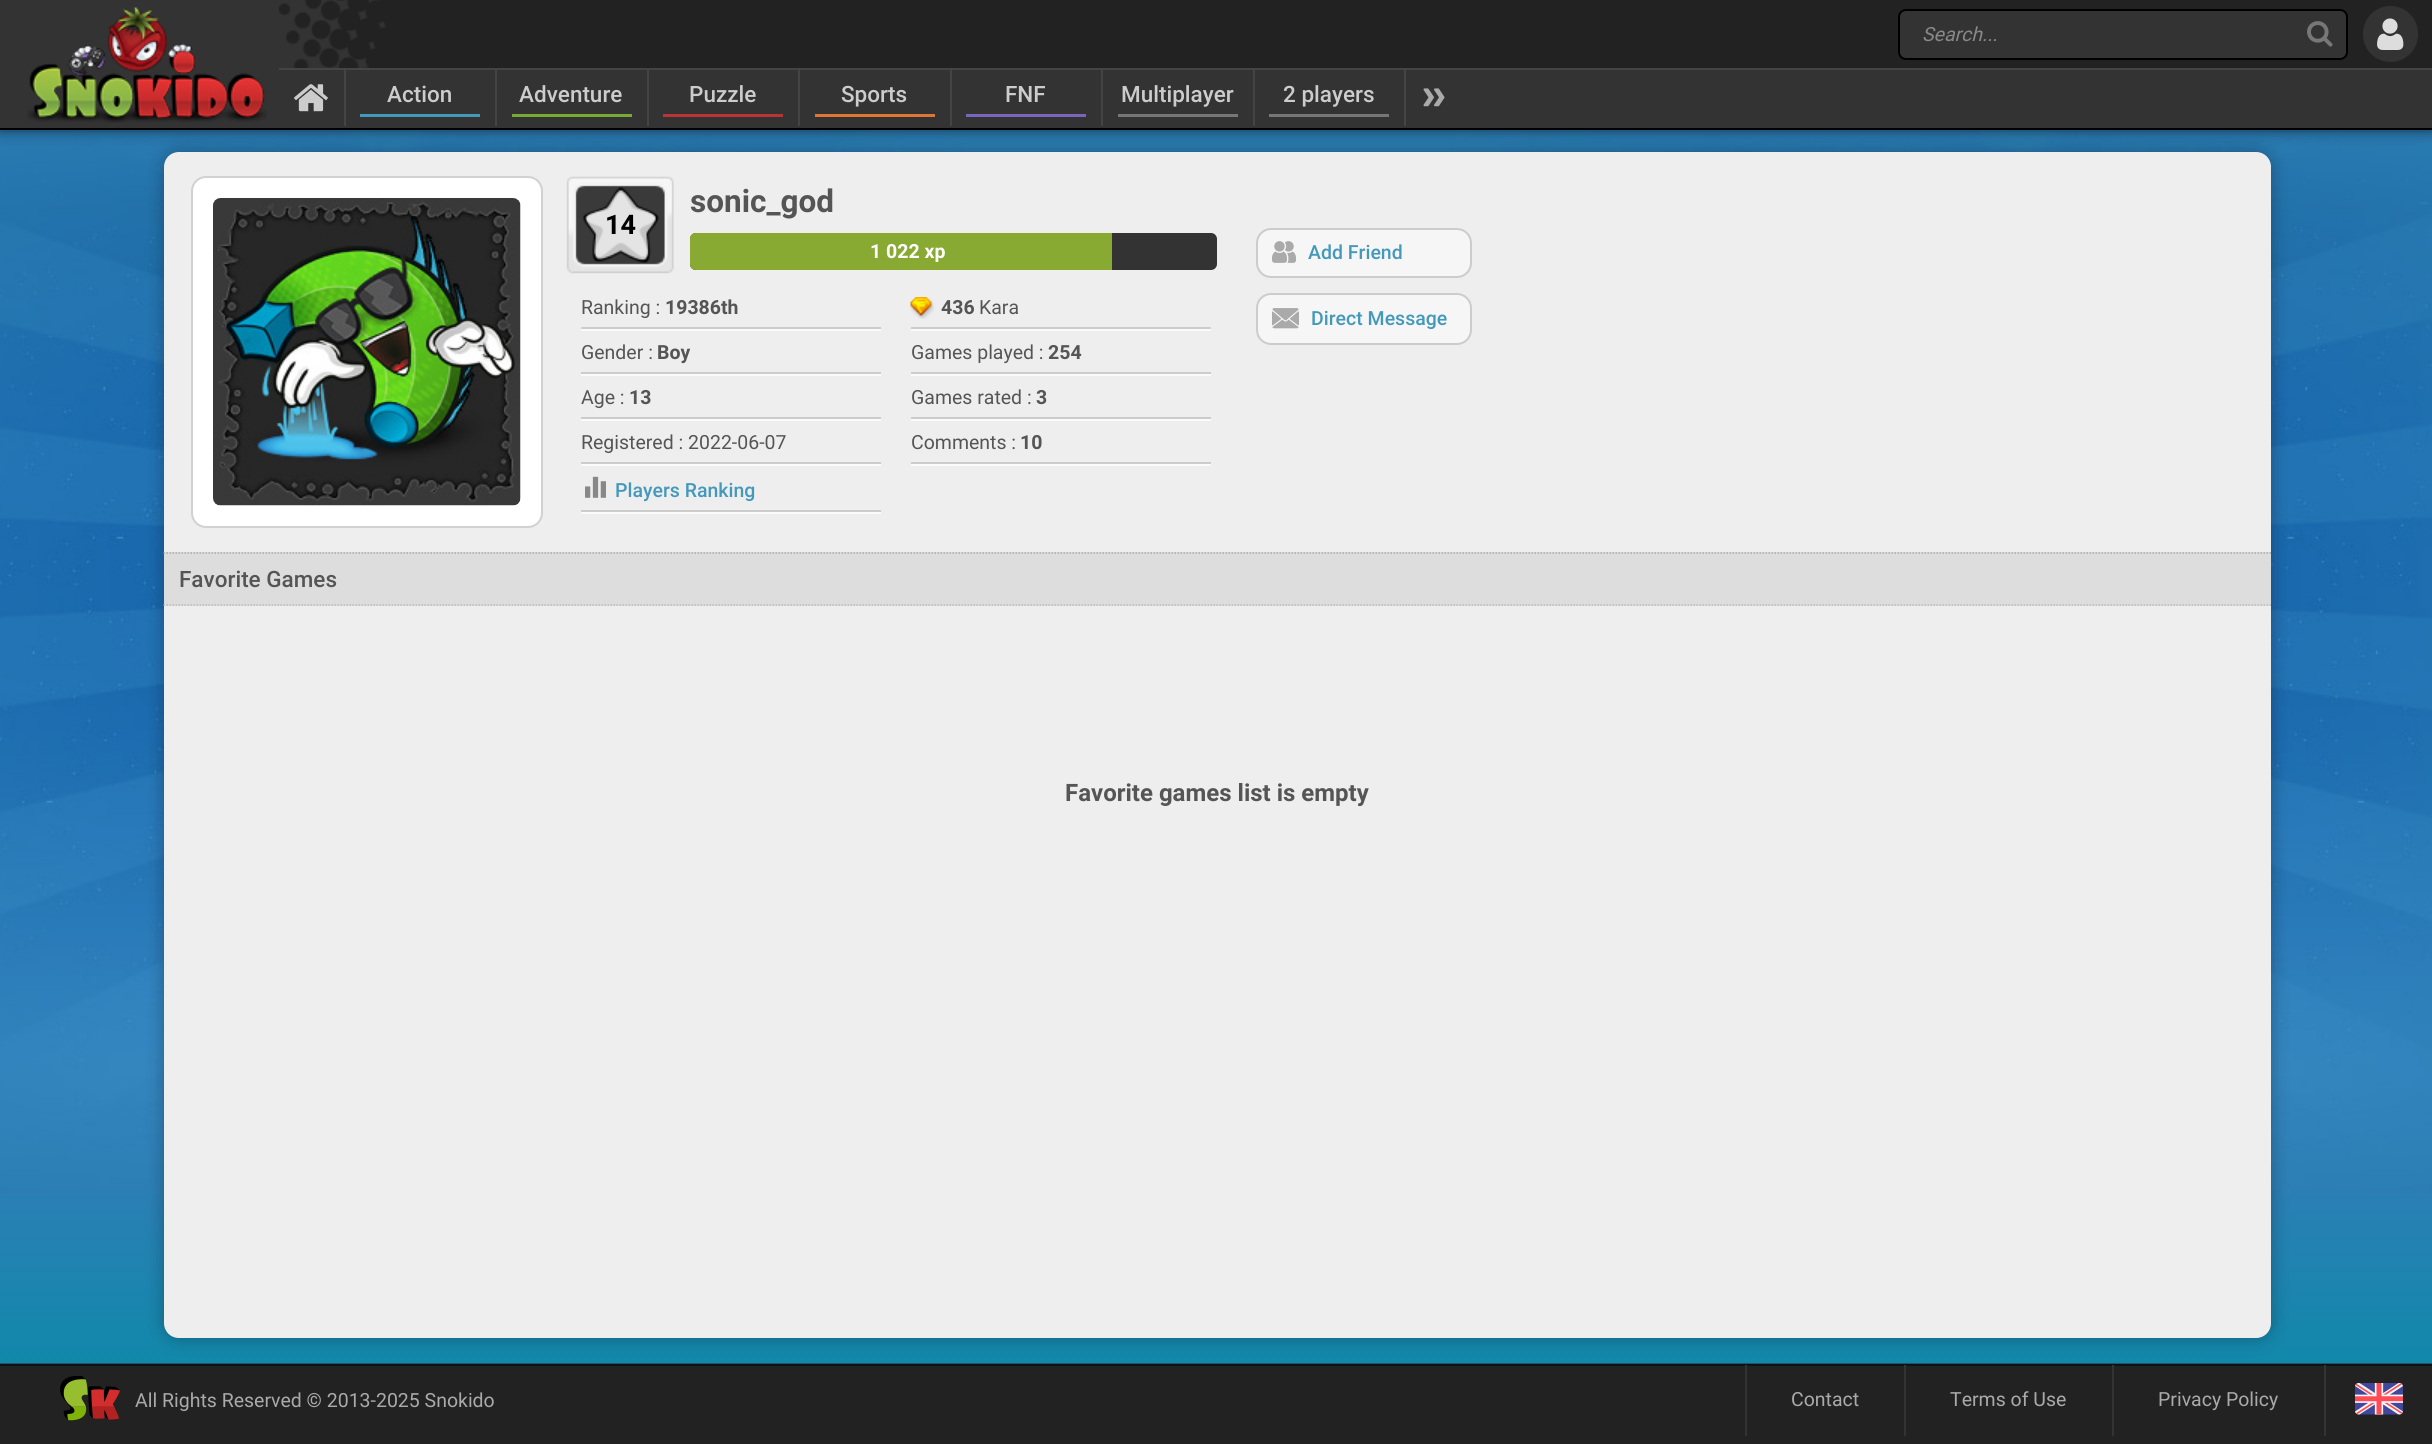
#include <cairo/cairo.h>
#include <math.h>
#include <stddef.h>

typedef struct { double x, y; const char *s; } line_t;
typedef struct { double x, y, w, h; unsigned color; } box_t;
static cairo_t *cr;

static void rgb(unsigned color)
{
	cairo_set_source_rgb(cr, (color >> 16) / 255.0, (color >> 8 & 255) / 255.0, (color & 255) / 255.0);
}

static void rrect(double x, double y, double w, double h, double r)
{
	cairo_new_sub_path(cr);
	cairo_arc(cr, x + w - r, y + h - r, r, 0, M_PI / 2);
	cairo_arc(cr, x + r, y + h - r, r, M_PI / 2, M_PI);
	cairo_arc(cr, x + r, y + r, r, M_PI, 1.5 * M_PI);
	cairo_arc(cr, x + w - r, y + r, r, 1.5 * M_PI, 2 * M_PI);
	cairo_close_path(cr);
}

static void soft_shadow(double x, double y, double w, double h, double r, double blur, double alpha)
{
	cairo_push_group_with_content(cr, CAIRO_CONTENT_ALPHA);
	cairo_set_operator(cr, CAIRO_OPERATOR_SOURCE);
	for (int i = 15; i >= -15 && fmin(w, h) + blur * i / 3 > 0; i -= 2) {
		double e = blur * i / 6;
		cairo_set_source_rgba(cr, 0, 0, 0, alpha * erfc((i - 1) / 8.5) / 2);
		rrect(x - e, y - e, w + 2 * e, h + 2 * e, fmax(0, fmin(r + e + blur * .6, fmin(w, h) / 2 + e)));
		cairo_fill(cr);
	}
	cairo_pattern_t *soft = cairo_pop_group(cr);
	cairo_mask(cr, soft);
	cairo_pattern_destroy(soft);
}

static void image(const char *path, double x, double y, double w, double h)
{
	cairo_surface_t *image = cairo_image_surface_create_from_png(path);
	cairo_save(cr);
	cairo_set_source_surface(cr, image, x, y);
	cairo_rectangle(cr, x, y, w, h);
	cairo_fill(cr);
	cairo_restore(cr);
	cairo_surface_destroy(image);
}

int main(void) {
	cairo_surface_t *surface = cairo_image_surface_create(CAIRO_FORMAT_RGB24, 2432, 1444);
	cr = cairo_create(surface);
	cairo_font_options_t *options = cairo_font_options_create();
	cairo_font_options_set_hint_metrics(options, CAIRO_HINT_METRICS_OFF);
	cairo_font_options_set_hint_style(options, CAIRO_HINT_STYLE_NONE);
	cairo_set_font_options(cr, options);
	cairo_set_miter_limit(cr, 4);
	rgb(0x222222);
	cairo_paint(cr);
	image("img/7.png", 0, 130, 2432, 1234);
	rgb(0x000000);
	soft_shadow(164, 152, 2107, 1186, 15, 9, 0.3);
	rgb(0xeeeeee);
	cairo_new_path(cr);
	cairo_move_to(cr, 179, 152);
	cairo_line_to(cr, 2256, 152);
	cairo_curve_to(cr, 2264.5, 152, 2271, 158.5, 2271, 167);
	cairo_line_to(cr, 2271, 552);
	cairo_line_to(cr, 164, 552);
	cairo_line_to(cr, 164, 167);
	cairo_curve_to(cr, 164, 158.5, 170.5, 152, 179, 152);
	cairo_close_path(cr);
	cairo_fill(cr);
	rgb(0x000000);
	soft_shadow(0, 0, 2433, 129, 0, 7.5, 0.7);
	rgb(0x333333);
	cairo_rectangle(cr, 0, 0, 2432, 128);
	cairo_fill(cr);
	rgb(0x000000);
	cairo_rectangle(cr, 0, 128, 2432, 2);
	cairo_fill(cr);
	image("img/1.png", 27, 7, 240, 116);
	image("img/2.png", 279, 0, 2153, 68);
	{
		static const box_t items[] = {
			{344, 69, 2, 57, 0x444444},
			{495, 69, 2, 57, 0x444444},
			{647, 69, 2, 57, 0x444444},
			{798, 69, 2, 57, 0x444444},
			{950, 69, 2, 57, 0x444444},
			{1101, 69, 2, 57, 0x444444},
			{1253, 69, 2, 57, 0x444444},
			{1404, 69, 2, 57, 0x444444},
			{279, 68, 2153, 2, 0x444444},
		};
		for (size_t i = 0; i < sizeof items / sizeof *items; i++) {
			rgb(items[i].color);
			cairo_rectangle(cr, items[i].x, items[i].y, items[i].w, items[i].h);
			cairo_fill(cr);
		}
	}
	rgb(0x333333);
	rrect(1899, 10, 448, 49, 7);
	cairo_fill_preserve(cr);
	rgb(0x000000);
	cairo_stroke(cr);
	image("img/3.png", 2307, 21, 26, 26);
	rgb(0x333333);
	rrect(2363, 6, 55, 56, 27.5);
	cairo_fill(cr);
	image("img/4.png", 2377, 18, 27, 32);
	image("img/5.png", 294, 84, 34, 28);
	{
		static const box_t items[] = {
			{360, 114, 120, 3, 0x4499bb},
			{512, 114, 120, 3, 0x77aa33},
			{663, 114, 120, 3, 0xbb3333},
			{815, 114, 120, 3, 0xdd7733},
			{966, 114, 120, 3, 0x7766bb},
			{1118, 114, 120, 3, 0x777777},
			{1269, 114, 120, 3, 0x777777},
		};
		for (size_t i = 0; i < sizeof items / sizeof *items; i++) {
			rgb(items[i].color);
			cairo_rectangle(cr, items[i].x, items[i].y, items[i].w, items[i].h);
			cairo_fill(cr);
		}
	}
	image("img/6.png", 1423, 88, 22, 19);
	rgb(0xffffff);
	rrect(192, 177, 350, 350, 14);
	cairo_fill_preserve(cr);
	rgb(0xd1d1d1);
	cairo_stroke(cr);
	image("img/8.png", 213, 198, 308, 308);
	image("img/9.png", 566, 176, 108, 98);
	rgb(0x333333);
	rrect(690, 233, 527, 37, 6);
	cairo_fill(cr);
	rgb(0x88aa33);
	cairo_new_path(cr);
	cairo_move_to(cr, 696, 233);
	cairo_line_to(cr, 1112, 233);
	cairo_line_to(cr, 1112, 270);
	cairo_line_to(cr, 696, 270);
	cairo_curve_to(cr, 692.5, 270, 690, 267.5, 690, 264);
	cairo_line_to(cr, 690, 239);
	cairo_curve_to(cr, 690, 235.5, 692.5, 233, 696, 233);
	cairo_close_path(cr);
	cairo_fill(cr);
	{
		static const box_t items[] = {
			{581, 512, 300, 2, 0xfafafa},
			{581, 327, 300, 2, 0xcccccc},
			{581, 329, 300, 2, 0xfafafa},
			{581, 372, 300, 2, 0xcccccc},
			{581, 374, 300, 2, 0xfafafa},
			{581, 417, 300, 2, 0xcccccc},
			{581, 419, 300, 2, 0xfafafa},
			{581, 462, 300, 2, 0xcccccc},
			{581, 464, 300, 2, 0xfafafa},
			{581, 510, 300, 2, 0xcccccc},
		};
		for (size_t i = 0; i < sizeof items / sizeof *items; i++) {
			rgb(items[i].color);
			cairo_rectangle(cr, items[i].x, items[i].y, items[i].w, items[i].h);
			cairo_fill(cr);
		}
	}
	image("img/10.png", 585, 476, 21, 22);
	rgb(0xfafafa);
	cairo_rectangle(cr, 911, 464, 300, 2);
	cairo_fill(cr);
	image("img/11.png", 910, 297, 24, 22);
	{
		static const box_t items[] = {
			{911, 327, 300, 2, 0xcccccc},
			{911, 329, 300, 2, 0xfafafa},
			{911, 372, 300, 2, 0xcccccc},
			{911, 374, 300, 2, 0xfafafa},
			{911, 417, 300, 2, 0xcccccc},
			{911, 419, 300, 2, 0xfafafa},
			{911, 462, 300, 2, 0xcccccc},
		};
		for (size_t i = 0; i < sizeof items / sizeof *items; i++) {
			rgb(items[i].color);
			cairo_rectangle(cr, items[i].x, items[i].y, items[i].w, items[i].h);
			cairo_fill(cr);
		}
	}
	rgb(0xf6f6f6);
	rrect(1257, 229, 214, 48, 14);
	cairo_fill_preserve(cr);
	rgb(0xcccccc);
	cairo_stroke(cr);
	image("img/12.png", 1272, 241, 24, 22);
	rgb(0xf6f6f6);
	rrect(1257, 294, 214, 50, 14);
	cairo_fill_preserve(cr);
	rgb(0xcccccc);
	cairo_stroke(cr);
	image("img/13.png", 1272, 308, 27, 21);
	rgb(0xeeeeee);
	cairo_new_path(cr);
	cairo_move_to(cr, 164, 552);
	cairo_line_to(cr, 2271, 552);
	cairo_line_to(cr, 2271, 1323);
	cairo_curve_to(cr, 2271, 1331.5, 2264.5, 1338, 2256, 1338);
	cairo_line_to(cr, 179, 1338);
	cairo_curve_to(cr, 170.5, 1338, 164, 1331.5, 164, 1323);
	cairo_close_path(cr);
	cairo_fill(cr);
	rgb(0xdddddd);
	cairo_rectangle(cr, 164, 552, 2107, 54);
	cairo_fill(cr);
	cairo_new_path(cr);
	cairo_move_to(cr, 163.5, 553);
	cairo_line_to(cr, 2271, 553);
	rgb(0xaaaaaa);
	cairo_set_line_width(cr, 1.5);
	cairo_set_dash(cr, (double[]){1.5, 1.5}, 2, 0);
	cairo_stroke(cr);
	cairo_new_path(cr);
	cairo_move_to(cr, 163.5, 605);
	cairo_line_to(cr, 2271, 605);
	rgb(0xbbbbbb);
	cairo_stroke(cr);
	rgb(0x111111);
	cairo_rectangle(cr, 0, 1364, 2432, 2);
	cairo_fill(cr);
	image("img/14.png", 60, 1376, 60, 45);
	{
		static const box_t items[] = {
			{1745, 1365, 2, 71, 0x333333},
			{1904, 1365, 2, 71, 0x333333},
			{2112, 1365, 2, 71, 0x333333},
			{2324, 1365, 2, 71, 0x333333},
		};
		for (size_t i = 0; i < sizeof items / sizeof *items; i++) {
			rgb(items[i].color);
			cairo_rectangle(cr, items[i].x, items[i].y, items[i].w, items[i].h);
			cairo_fill(cr);
		}
	}
	image("img/15.png", 2355, 1383, 48, 32);
	cairo_select_font_face(cr, "Roboto", CAIRO_FONT_SLANT_ITALIC, CAIRO_FONT_WEIGHT_NORMAL);
	cairo_set_font_size(cr, 19.5);
	rgb(0x888888);
	cairo_move_to(cr, 1922, 41);
	cairo_show_text(cr, "Search...");
	cairo_select_font_face(cr, "Roboto Medium", CAIRO_FONT_SLANT_NORMAL, CAIRO_FONT_WEIGHT_NORMAL);
	cairo_set_font_size(cr, 22.5);
	rgb(0xcccccc);
	{
		static const line_t items[] = {
			{387, 102, "Action"},
			{519, 102, "Adventure"},
			{689, 102, "Puzzle"},
			{841, 102, "Sports"},
			{1005, 102, "FNF"},
			{1121, 102, "Multiplayer"},
			{1283, 102, "2 players"},
		};
		for (size_t i = 0; i < sizeof items / sizeof *items; i++) {
			cairo_move_to(cr, items[i].x, items[i].y);
			cairo_show_text(cr, items[i].s);
		}
	}
	cairo_select_font_face(cr, "Roboto", CAIRO_FONT_SLANT_NORMAL, CAIRO_FONT_WEIGHT_BOLD);
	cairo_set_font_size(cr, 27);
	rgb(0x000000);
	cairo_move_to(cr, 605, 234);
	cairo_show_text(cr, "14");
	cairo_set_font_size(cr, 31.5);
	rgb(0x555555);
	cairo_move_to(cr, 690, 212);
	cairo_show_text(cr, "sonic_god");
	cairo_set_font_size(cr, 19.5);
	rgb(0xffffff);
	cairo_move_to(cr, 870, 258);
	cairo_show_text(cr, "1 022 xp");
	cairo_select_font_face(cr, "Roboto", CAIRO_FONT_SLANT_NORMAL, CAIRO_FONT_WEIGHT_NORMAL);
	rgb(0x555555);
	cairo_move_to(cr, 581, 314);
	cairo_show_text(cr, "Ranking :");
	cairo_select_font_face(cr, "Roboto", CAIRO_FONT_SLANT_NORMAL, CAIRO_FONT_WEIGHT_BOLD);
	cairo_move_to(cr, 665, 314);
	cairo_show_text(cr, "19386th");
	cairo_select_font_face(cr, "Roboto", CAIRO_FONT_SLANT_NORMAL, CAIRO_FONT_WEIGHT_NORMAL);
	cairo_move_to(cr, 581, 359);
	cairo_show_text(cr, "Gender :");
	cairo_select_font_face(cr, "Roboto", CAIRO_FONT_SLANT_NORMAL, CAIRO_FONT_WEIGHT_BOLD);
	cairo_move_to(cr, 657, 359);
	cairo_show_text(cr, "Boy");
	cairo_select_font_face(cr, "Roboto", CAIRO_FONT_SLANT_NORMAL, CAIRO_FONT_WEIGHT_NORMAL);
	cairo_move_to(cr, 581, 404);
	cairo_show_text(cr, "Age :");
	cairo_select_font_face(cr, "Roboto", CAIRO_FONT_SLANT_NORMAL, CAIRO_FONT_WEIGHT_BOLD);
	cairo_move_to(cr, 629, 404);
	cairo_show_text(cr, "13");
	cairo_select_font_face(cr, "Roboto", CAIRO_FONT_SLANT_NORMAL, CAIRO_FONT_WEIGHT_NORMAL);
	cairo_move_to(cr, 581, 449);
	cairo_show_text(cr, "Registered : 2022-06-07");
	cairo_select_font_face(cr, "Roboto Medium", CAIRO_FONT_SLANT_NORMAL, CAIRO_FONT_WEIGHT_NORMAL);
	rgb(0x4499bb);
	cairo_move_to(cr, 615, 497);
	cairo_show_text(cr, "Players Ranking");
	cairo_select_font_face(cr, "Roboto", CAIRO_FONT_SLANT_NORMAL, CAIRO_FONT_WEIGHT_BOLD);
	rgb(0x555555);
	cairo_move_to(cr, 941, 314);
	cairo_show_text(cr, "436");
	cairo_select_font_face(cr, "Roboto", CAIRO_FONT_SLANT_NORMAL, CAIRO_FONT_WEIGHT_NORMAL);
	cairo_move_to(cr, 979, 314);
	cairo_show_text(cr, "Kara");
	cairo_move_to(cr, 911, 359);
	cairo_show_text(cr, "Games played :");
	cairo_select_font_face(cr, "Roboto", CAIRO_FONT_SLANT_NORMAL, CAIRO_FONT_WEIGHT_BOLD);
	cairo_move_to(cr, 1048, 359);
	cairo_show_text(cr, "254");
	cairo_select_font_face(cr, "Roboto", CAIRO_FONT_SLANT_NORMAL, CAIRO_FONT_WEIGHT_NORMAL);
	cairo_move_to(cr, 911, 404);
	cairo_show_text(cr, "Games rated :");
	cairo_select_font_face(cr, "Roboto", CAIRO_FONT_SLANT_NORMAL, CAIRO_FONT_WEIGHT_BOLD);
	cairo_move_to(cr, 1036, 404);
	cairo_show_text(cr, "3");
	cairo_select_font_face(cr, "Roboto", CAIRO_FONT_SLANT_NORMAL, CAIRO_FONT_WEIGHT_NORMAL);
	cairo_move_to(cr, 911, 449);
	cairo_show_text(cr, "Comments :");
	cairo_select_font_face(cr, "Roboto", CAIRO_FONT_SLANT_NORMAL, CAIRO_FONT_WEIGHT_BOLD);
	cairo_move_to(cr, 1020, 449);
	cairo_show_text(cr, "10");
	cairo_select_font_face(cr, "Roboto Medium", CAIRO_FONT_SLANT_NORMAL, CAIRO_FONT_WEIGHT_NORMAL);
	rgb(0x4499bb);
	cairo_move_to(cr, 1308, 259);
	cairo_show_text(cr, "Add Friend");
	cairo_move_to(cr, 1311, 325);
	cairo_show_text(cr, "Direct Message");
	cairo_set_font_size(cr, 22.5);
	rgb(0x555555);
	cairo_move_to(cr, 179, 587);
	cairo_show_text(cr, "Favorite Games");
	cairo_select_font_face(cr, "Roboto", CAIRO_FONT_SLANT_NORMAL, CAIRO_FONT_WEIGHT_BOLD);
	cairo_set_font_size(cr, 24);
	cairo_move_to(cr, 1065, 801);
	cairo_show_text(cr, "Favorite games list is empty");
	cairo_select_font_face(cr, "Roboto", CAIRO_FONT_SLANT_NORMAL, CAIRO_FONT_WEIGHT_NORMAL);
	cairo_set_font_size(cr, 19.5);
	rgb(0xaaaaaa);
	{
		static const line_t items[] = {
			{135, 1407, "All Rights Reserved © 2013-2025 Snokido"},
			{1791, 1406, "Contact"},
			{1950, 1406, "Terms of Use"},
			{2158, 1406, "Privacy Policy"},
		};
		for (size_t i = 0; i < sizeof items / sizeof *items; i++) {
			cairo_move_to(cr, items[i].x, items[i].y);
			cairo_show_text(cr, items[i].s);
		}
	}
	cairo_surface_write_to_png(surface, "page.png");
	cairo_font_options_destroy(options);
	cairo_destroy(cr);
	cairo_surface_destroy(surface);
	return 0;
}
